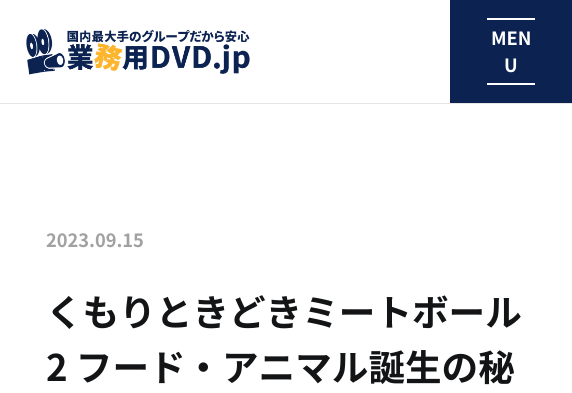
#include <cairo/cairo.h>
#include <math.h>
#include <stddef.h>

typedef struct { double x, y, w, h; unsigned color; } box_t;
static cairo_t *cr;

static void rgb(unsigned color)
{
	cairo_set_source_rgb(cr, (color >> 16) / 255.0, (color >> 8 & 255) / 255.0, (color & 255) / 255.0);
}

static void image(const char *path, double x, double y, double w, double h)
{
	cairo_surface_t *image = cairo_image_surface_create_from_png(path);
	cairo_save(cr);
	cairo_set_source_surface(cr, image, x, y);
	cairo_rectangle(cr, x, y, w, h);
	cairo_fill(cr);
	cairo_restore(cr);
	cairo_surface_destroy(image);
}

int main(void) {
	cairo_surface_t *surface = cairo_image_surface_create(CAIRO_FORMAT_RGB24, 572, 393);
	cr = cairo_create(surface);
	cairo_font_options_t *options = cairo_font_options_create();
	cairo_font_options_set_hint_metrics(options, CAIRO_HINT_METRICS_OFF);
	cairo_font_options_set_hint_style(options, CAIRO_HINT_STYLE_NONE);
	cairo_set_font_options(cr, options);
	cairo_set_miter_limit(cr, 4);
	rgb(0xffffff);
	cairo_paint(cr);
	rgb(0xe6e6e6);
	cairo_rectangle(cr, 0, 103, 572, 1);
	cairo_fill(cr);
	image("img/1.png", 26, 29, 224, 46);
	{
		static const box_t items[] = {
			{450, 0, 122, 103, 0x0c2352},
			{487, 18, 48, 2, 0xffffff},
			{487, 83, 48, 2, 0xffffff},
		};
		for (size_t i = 0; i < sizeof items / sizeof *items; i++) {
			rgb(items[i].color);
			cairo_rectangle(cr, items[i].x, items[i].y, items[i].w, items[i].h);
			cairo_fill(cr);
		}
	}
	cairo_select_font_face(cr, "Noto Sans JP", CAIRO_FONT_SLANT_NORMAL, CAIRO_FONT_WEIGHT_BOLD);
	cairo_set_font_size(cr, 18.25);
	cairo_move_to(cr, 491, 45);
	cairo_show_text(cr, "MEN");
	cairo_move_to(cr, 504, 72);
	cairo_show_text(cr, "U");
	rgb(0xa1a1a2);
	cairo_move_to(cr, 46, 247);
	cairo_show_text(cr, "2023.09.15");
	cairo_set_font_size(cr, 36.6);
	rgb(0x131416);
	cairo_move_to(cr, 46, 326);
	cairo_show_text(cr, "くもりときどきミートボール");
	cairo_move_to(cr, 46, 381);
	cairo_show_text(cr, "2 フード");
	cairo_select_font_face(cr, "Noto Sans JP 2", CAIRO_FONT_SLANT_NORMAL, CAIRO_FONT_WEIGHT_BOLD);
	cairo_move_to(cr, 185, 381);
	cairo_show_text(cr, "・");
	cairo_select_font_face(cr, "Noto Sans JP", CAIRO_FONT_SLANT_NORMAL, CAIRO_FONT_WEIGHT_BOLD);
	cairo_move_to(cr, 222, 381);
	cairo_show_text(cr, "アニマル誕生の秘");
	cairo_surface_write_to_png(surface, "page.png");
	cairo_font_options_destroy(options);
	cairo_destroy(cr);
	cairo_surface_destroy(surface);
	return 0;
}
